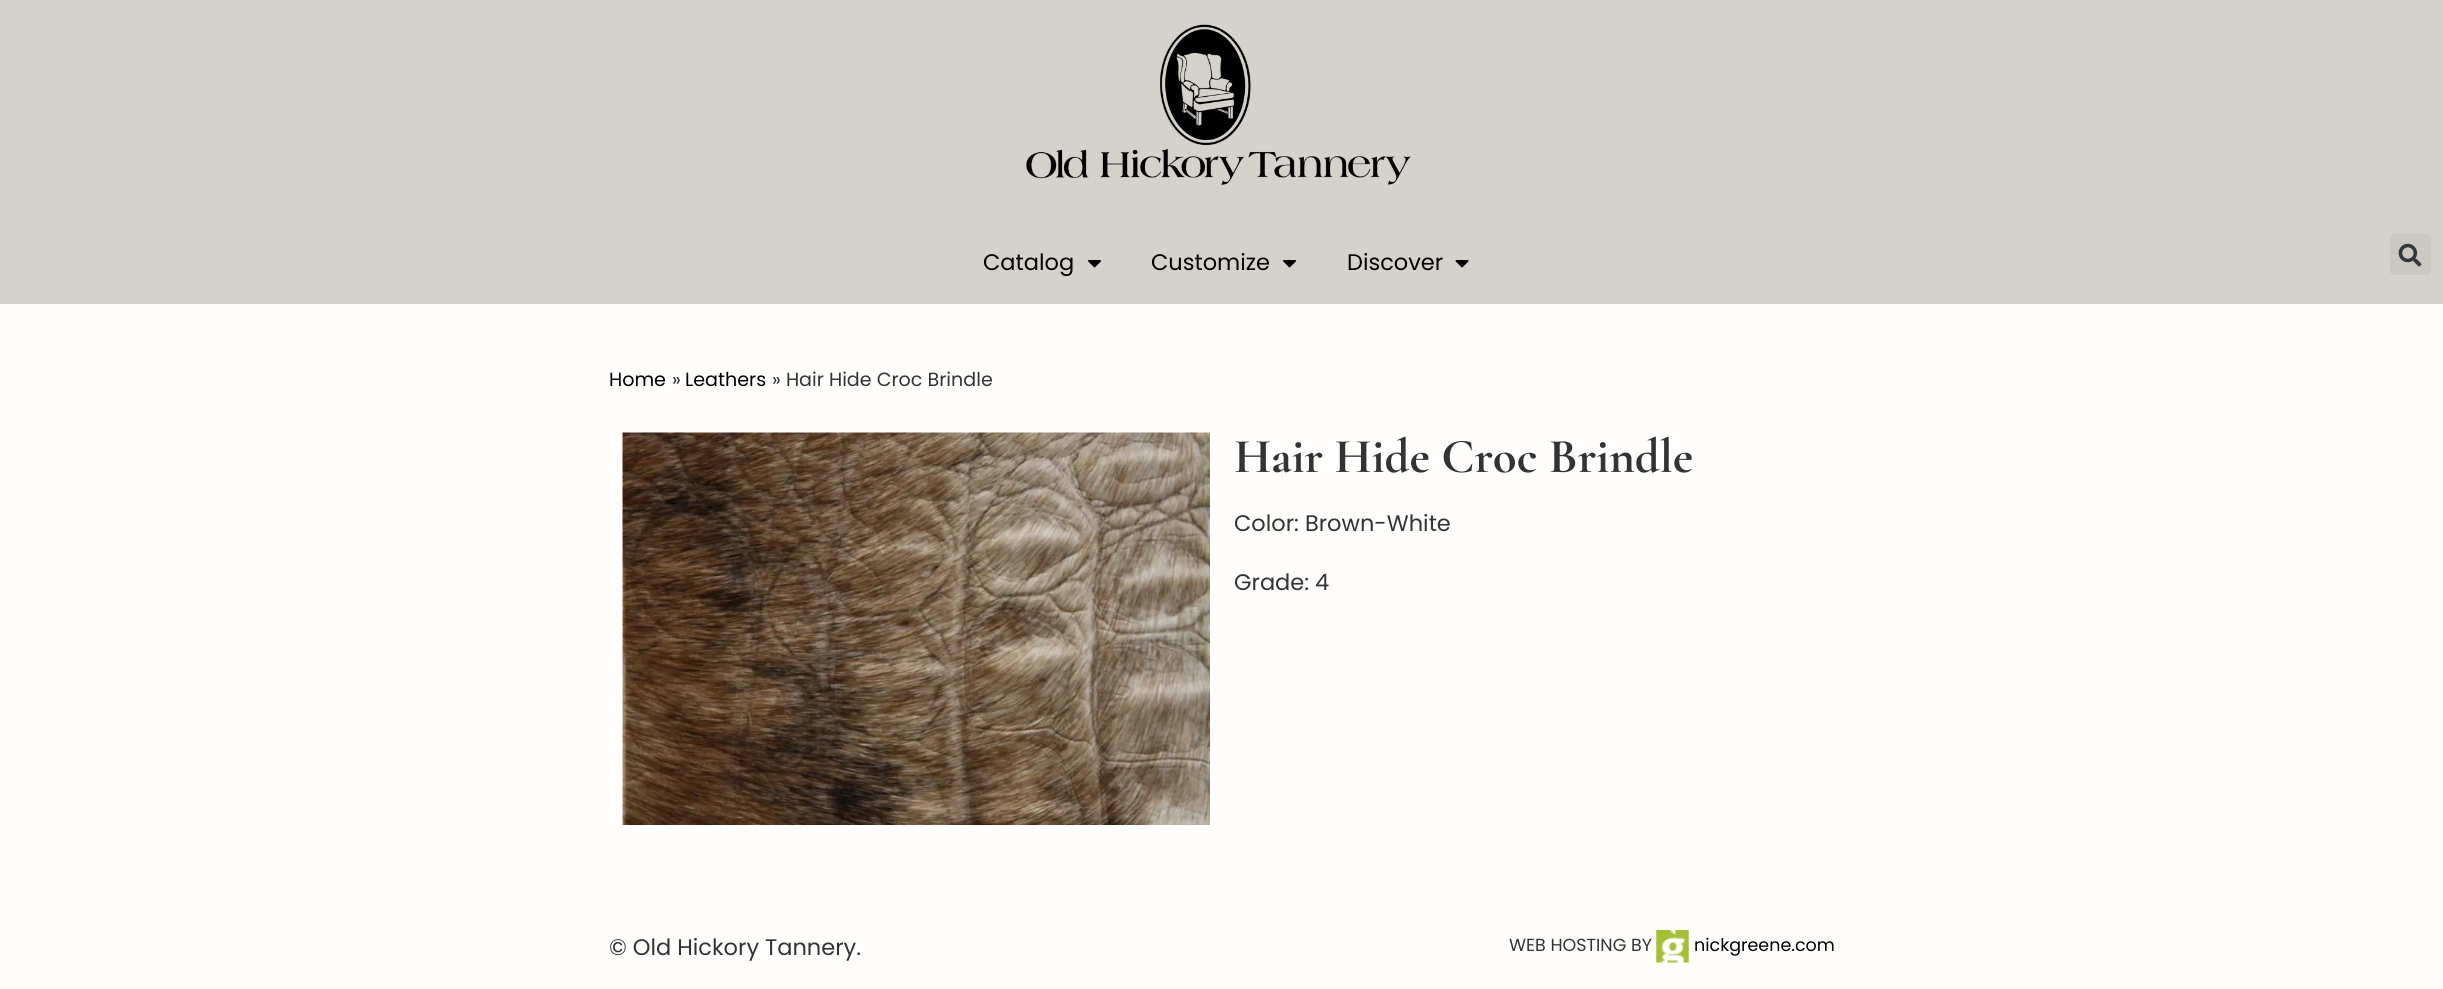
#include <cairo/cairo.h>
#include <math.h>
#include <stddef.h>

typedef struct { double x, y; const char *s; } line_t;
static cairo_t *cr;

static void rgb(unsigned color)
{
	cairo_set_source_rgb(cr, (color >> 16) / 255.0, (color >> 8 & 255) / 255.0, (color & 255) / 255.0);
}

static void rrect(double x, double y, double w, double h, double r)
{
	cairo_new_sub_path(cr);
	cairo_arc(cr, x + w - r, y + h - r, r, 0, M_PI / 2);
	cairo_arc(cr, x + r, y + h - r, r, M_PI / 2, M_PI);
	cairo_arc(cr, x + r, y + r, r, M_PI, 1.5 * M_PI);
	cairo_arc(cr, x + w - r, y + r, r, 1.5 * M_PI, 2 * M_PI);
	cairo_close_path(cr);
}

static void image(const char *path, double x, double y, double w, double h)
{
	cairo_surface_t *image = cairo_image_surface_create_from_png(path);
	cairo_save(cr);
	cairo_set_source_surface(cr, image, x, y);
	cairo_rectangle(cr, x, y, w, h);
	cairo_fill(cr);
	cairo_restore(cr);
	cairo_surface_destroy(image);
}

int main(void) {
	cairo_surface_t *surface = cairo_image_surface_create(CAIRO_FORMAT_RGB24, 2443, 989);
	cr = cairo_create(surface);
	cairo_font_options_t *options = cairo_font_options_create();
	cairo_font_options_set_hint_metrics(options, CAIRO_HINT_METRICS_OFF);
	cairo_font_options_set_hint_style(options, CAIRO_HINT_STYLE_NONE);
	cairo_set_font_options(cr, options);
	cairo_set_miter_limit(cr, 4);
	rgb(0xfffefc);
	cairo_paint(cr);
	rgb(0xd5d2cb);
	cairo_rectangle(cr, 0, 0, 2443, 304);
	cairo_fill(cr);
	image("img/1.png", 1026, 24, 385, 161);
	image("img/2.png", 1088, 260, 13, 8);
	image("img/2.png", 1283, 260, 13, 8);
	image("img/3.png", 1455, 260, 14, 8);
	rgb(0xcac8c1);
	rrect(2390, 234, 41, 41, 4);
	cairo_fill(cr);
	image("img/4.png", 2398, 243, 24, 24);
	image("img/5.png", 622, 432, 588, 393);
	image("img/6.png", 1656, 930, 33, 33);
	cairo_select_font_face(cr, "Poppins", CAIRO_FONT_SLANT_NORMAL, CAIRO_FONT_WEIGHT_NORMAL);
	cairo_set_font_size(cr, 22.5);
	rgb(0x000000);
	{
		static const line_t items[] = {
			{983, 270, "Catalog"},
			{1151, 270, "Customize"},
			{1347, 270, "Discover"},
		};
		for (size_t i = 0; i < sizeof items / sizeof *items; i++) {
			cairo_move_to(cr, items[i].x, items[i].y);
			cairo_show_text(cr, items[i].s);
		}
	}
	cairo_set_font_size(cr, 19.1);
	cairo_move_to(cr, 609, 386);
	cairo_show_text(cr, "Home");
	rgb(0x333333);
	cairo_move_to(cr, 672, 386);
	cairo_show_text(cr, "»");
	rgb(0x000000);
	cairo_move_to(cr, 685, 386);
	cairo_show_text(cr, "Leathers");
	rgb(0x333333);
	cairo_move_to(cr, 772, 386);
	cairo_show_text(cr, "» Hair Hide Croc Brindle");
	cairo_select_font_face(cr, "Cormorant Garamond", CAIRO_FONT_SLANT_NORMAL, CAIRO_FONT_WEIGHT_BOLD);
	cairo_set_font_size(cr, 48.75);
	cairo_move_to(cr, 1234, 472);
	cairo_show_text(cr, "Hair Hide Croc Brindle");
	cairo_select_font_face(cr, "Poppins", CAIRO_FONT_SLANT_NORMAL, CAIRO_FONT_WEIGHT_NORMAL);
	cairo_set_font_size(cr, 22.5);
	{
		static const line_t items[] = {
			{1234, 531, "Color: Brown-White"},
			{1234, 590, "Grade: 4"},
			{609, 955, "© Old Hickory Tannery."},
		};
		for (size_t i = 0; i < sizeof items / sizeof *items; i++) {
			cairo_move_to(cr, items[i].x, items[i].y);
			cairo_show_text(cr, items[i].s);
		}
	}
	cairo_set_font_size(cr, 17.5);
	cairo_move_to(cr, 1509, 951);
	cairo_show_text(cr, "WEB HOSTING BY");
	rgb(0x000000);
	cairo_move_to(cr, 1694, 951);
	cairo_show_text(cr, "nickgreene.com");
	cairo_surface_write_to_png(surface, "page.png");
	cairo_font_options_destroy(options);
	cairo_destroy(cr);
	cairo_surface_destroy(surface);
	return 0;
}
